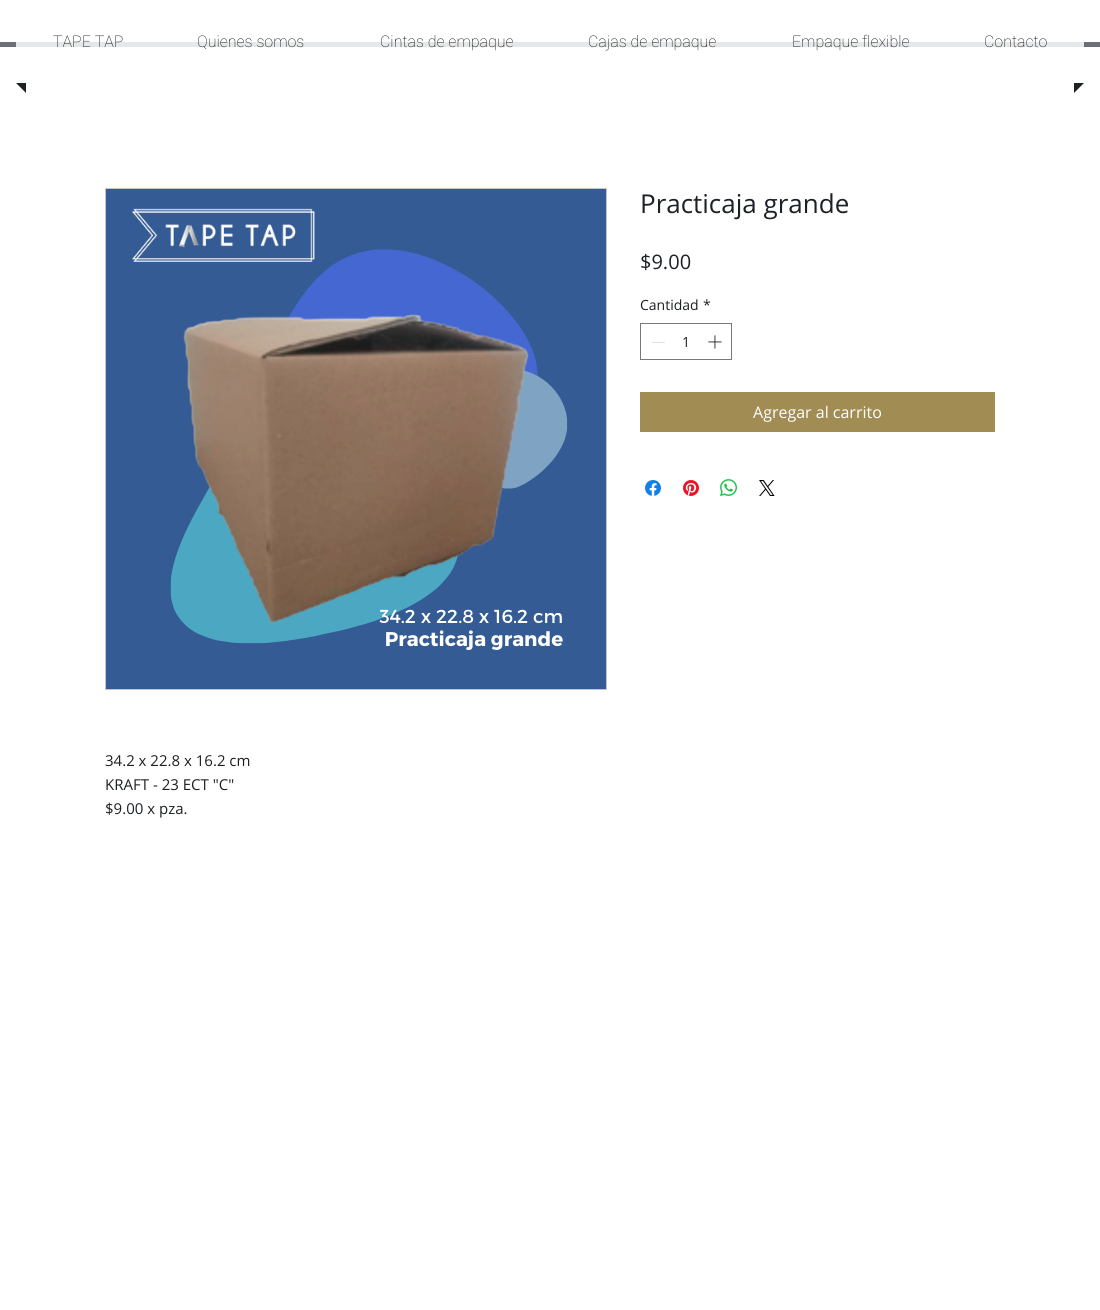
#include <cairo/cairo.h>
#include <math.h>
#include <stddef.h>

typedef struct { double x, y; const char *s; } line_t;
static cairo_t *cr;

static void rgb(unsigned color)
{
	cairo_set_source_rgb(cr, (color >> 16) / 255.0, (color >> 8 & 255) / 255.0, (color & 255) / 255.0);
}

static void image(const char *path, double x, double y, double w, double h)
{
	cairo_surface_t *image = cairo_image_surface_create_from_png(path);
	cairo_save(cr);
	cairo_set_source_surface(cr, image, x, y);
	cairo_rectangle(cr, x, y, w, h);
	cairo_fill(cr);
	cairo_restore(cr);
	cairo_surface_destroy(image);
}

int main(void) {
	cairo_surface_t *surface = cairo_image_surface_create(CAIRO_FORMAT_RGB24, 1100, 1310);
	cr = cairo_create(surface);
	cairo_font_options_t *options = cairo_font_options_create();
	cairo_font_options_set_hint_metrics(options, CAIRO_HINT_METRICS_OFF);
	cairo_font_options_set_hint_style(options, CAIRO_HINT_STYLE_NONE);
	cairo_set_font_options(cr, options);
	cairo_set_miter_limit(cr, 4);
	rgb(0xffffff);
	cairo_paint(cr);
	rgb(0x1d2025);
	cairo_new_path(cr);
	cairo_move_to(cr, 16, 83);
	cairo_line_to(cr, 26, 83);
	cairo_line_to(cr, 26, 93);
	cairo_close_path(cr);
	cairo_fill(cr);
	cairo_new_path(cr);
	cairo_move_to(cr, 1074, 83);
	cairo_line_to(cr, 1084, 83);
	cairo_line_to(cr, 1074, 93);
	cairo_close_path(cr);
	cairo_fill(cr);
	rgb(0x6a6f76);
	cairo_rectangle(cr, 0, 42, 1100, 5);
	cairo_fill(cr);
	rgb(0xe6e7e8);
	cairo_rectangle(cr, 16, 42, 1068, 5);
	cairo_fill(cr);
	cairo_rectangle(cr, 640.5, 323.5, 91, 36);
	rgb(0x77797c);
	cairo_set_line_width(cr, 1);
	cairo_stroke(cr);
	rgb(0xe3e3e3);
	cairo_rectangle(cr, 652, 342, 13, 1);
	cairo_fill(cr);
	image("img/1.png", 708, 335, 14, 14);
	rgb(0xa18c53);
	cairo_rectangle(cr, 640, 392, 355, 40);
	cairo_fill(cr);
	image("img/2.png", 645, 480, 16, 16);
	image("img/3.png", 683, 480, 16, 16);
	image("img/4.png", 720, 479, 17, 17);
	image("img/5.png", 759, 480, 16, 16);
	cairo_rectangle(cr, 105.5, 188.5, 501, 501);
	rgb(0xc6c6c6);
	cairo_stroke(cr);
	image("img/6.png", 106, 189, 500, 500);
	cairo_select_font_face(cr, "Roboto Thin", CAIRO_FONT_SLANT_NORMAL, CAIRO_FONT_WEIGHT_NORMAL);
	cairo_set_font_size(cr, 16);
	rgb(0x000000);
	{
		static const line_t items[] = {
			{53, 47, "TAPE TAP"},
			{197, 47, "Quienes somos"},
			{380, 47, "Cintas de empaque"},
			{588, 47, "Cajas de empaque"},
			{792, 47, "Empaque flexible"},
			{984, 47, "Contacto"},
		};
		for (size_t i = 0; i < sizeof items / sizeof *items; i++) {
			cairo_move_to(cr, items[i].x, items[i].y);
			cairo_show_text(cr, items[i].s);
		}
	}
	cairo_select_font_face(cr, "Open Sans", CAIRO_FONT_SLANT_NORMAL, CAIRO_FONT_WEIGHT_NORMAL);
	cairo_set_font_size(cr, 26);
	rgb(0x1d2025);
	cairo_move_to(cr, 640, 213);
	cairo_show_text(cr, "Practicaja grande");
	cairo_set_font_size(cr, 20);
	cairo_move_to(cr, 640, 269);
	cairo_show_text(cr, "$9.00");
	cairo_set_font_size(cr, 14);
	{
		static const line_t items[] = {
			{640, 310, "Cantidad"},
			{703, 310, "*"},
			{682, 347, "1"},
		};
		for (size_t i = 0; i < sizeof items / sizeof *items; i++) {
			cairo_move_to(cr, items[i].x, items[i].y);
			cairo_show_text(cr, items[i].s);
		}
	}
	cairo_set_font_size(cr, 16);
	rgb(0xffffff);
	cairo_move_to(cr, 753, 418);
	cairo_show_text(cr, "Agregar al carrito");
	cairo_set_font_size(cr, 15);
	rgb(0x1d2025);
	{
		static const line_t items[] = {
			{105, 766, "34.2 x 22.8 x 16.2 cm"},
			{105, 790, "KRAFT - 23 ECT \"C\""},
			{105, 814, "$9.00 x pza."},
		};
		for (size_t i = 0; i < sizeof items / sizeof *items; i++) {
			cairo_move_to(cr, items[i].x, items[i].y);
			cairo_show_text(cr, items[i].s);
		}
	}
	cairo_surface_write_to_png(surface, "page.png");
	cairo_font_options_destroy(options);
	cairo_destroy(cr);
	cairo_surface_destroy(surface);
	return 0;
}
